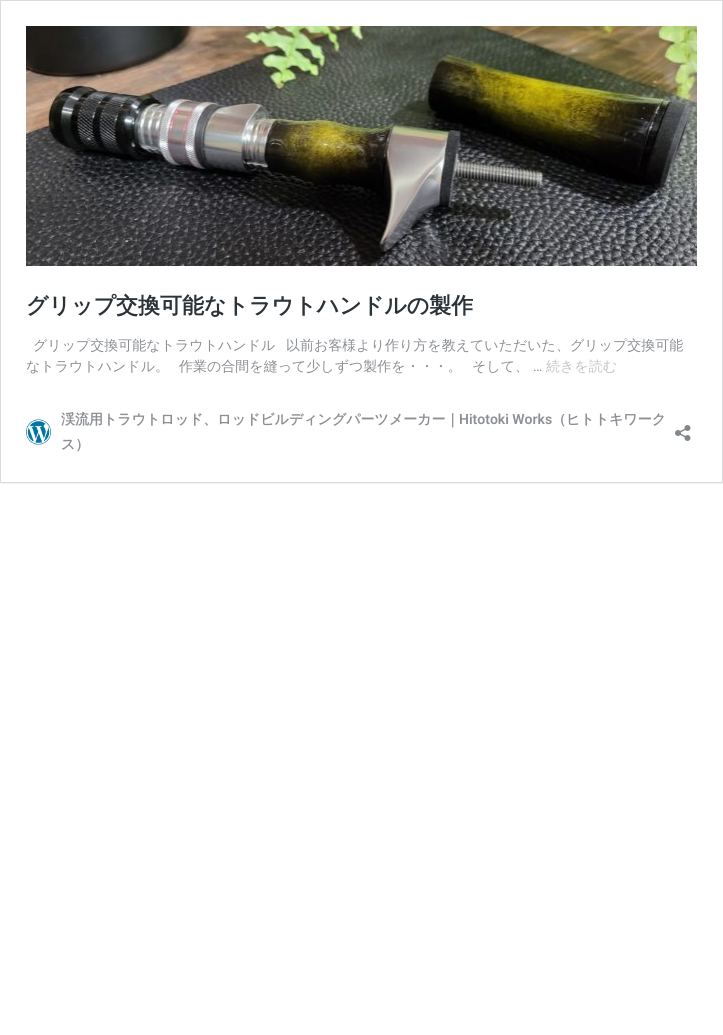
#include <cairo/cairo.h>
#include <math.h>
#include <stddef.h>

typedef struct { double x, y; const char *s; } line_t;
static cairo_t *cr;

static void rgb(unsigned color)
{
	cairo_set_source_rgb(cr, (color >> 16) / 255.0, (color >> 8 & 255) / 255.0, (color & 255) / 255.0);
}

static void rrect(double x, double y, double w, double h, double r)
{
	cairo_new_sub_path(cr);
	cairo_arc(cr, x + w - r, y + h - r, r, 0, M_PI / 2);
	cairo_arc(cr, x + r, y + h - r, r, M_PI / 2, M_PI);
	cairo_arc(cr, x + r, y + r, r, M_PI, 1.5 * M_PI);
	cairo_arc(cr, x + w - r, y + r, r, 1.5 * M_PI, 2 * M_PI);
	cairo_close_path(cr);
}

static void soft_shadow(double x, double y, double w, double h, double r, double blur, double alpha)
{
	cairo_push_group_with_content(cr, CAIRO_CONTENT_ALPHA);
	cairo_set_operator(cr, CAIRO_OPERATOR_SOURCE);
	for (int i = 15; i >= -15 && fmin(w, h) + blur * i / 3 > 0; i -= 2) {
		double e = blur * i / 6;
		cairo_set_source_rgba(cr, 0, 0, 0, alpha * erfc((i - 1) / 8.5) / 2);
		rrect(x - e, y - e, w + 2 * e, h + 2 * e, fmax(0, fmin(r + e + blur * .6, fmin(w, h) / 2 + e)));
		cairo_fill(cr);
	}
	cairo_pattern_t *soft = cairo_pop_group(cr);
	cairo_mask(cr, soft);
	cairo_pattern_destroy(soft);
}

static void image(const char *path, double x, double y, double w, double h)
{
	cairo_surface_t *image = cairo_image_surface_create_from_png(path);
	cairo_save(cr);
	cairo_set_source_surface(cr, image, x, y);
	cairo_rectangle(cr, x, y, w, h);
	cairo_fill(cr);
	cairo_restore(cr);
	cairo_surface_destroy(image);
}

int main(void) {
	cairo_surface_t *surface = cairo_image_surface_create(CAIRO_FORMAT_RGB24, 723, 1035);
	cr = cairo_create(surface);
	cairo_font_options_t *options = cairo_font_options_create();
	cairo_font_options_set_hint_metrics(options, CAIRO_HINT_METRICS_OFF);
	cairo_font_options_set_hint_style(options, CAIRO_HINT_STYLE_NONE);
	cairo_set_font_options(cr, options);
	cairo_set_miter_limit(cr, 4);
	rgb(0xffffff);
	cairo_paint(cr);
	cairo_save(cr);
	cairo_rectangle(cr, 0, 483, 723, 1);
	cairo_clip(cr);
	rgb(0x000000);
	soft_shadow(0, 1, 723, 483, 0, 0.5, 0.05);
	cairo_restore(cr);
	cairo_rectangle(cr, 0.5, 0.5, 722, 482);
	rgb(0xdcdcde);
	cairo_set_line_width(cr, 1);
	cairo_stroke(cr);
	image("img/1.png", 26, 26, 671, 240);
	image("img/2.png", 26, 419, 25, 26);
	image("img/3.png", 675, 425, 16, 16);
	cairo_select_font_face(cr, "WenQuanYi Zen Hei", CAIRO_FONT_SLANT_NORMAL, CAIRO_FONT_WEIGHT_BOLD);
	cairo_set_font_size(cr, 22);
	rgb(0x2c3338);
	cairo_move_to(cr, 26, 313);
	cairo_show_text(cr, "グリップ交換可能なトラウトハンドルの製作");
	cairo_select_font_face(cr, "WenQuanYi Zen Hei Medium", CAIRO_FONT_SLANT_NORMAL, CAIRO_FONT_WEIGHT_NORMAL);
	cairo_set_font_size(cr, 14);
	rgb(0x8c8f94);
	{
		static const line_t items[] = {
			{33, 350, "グリップ交換可能なトラウトハンドル"},
			{286, 350, "以前お客様より作り方を教えていただいた、グリップ交換可能"},
			{26, 371, "なトラウトハンドル。"},
			{179, 371, "作業の合間を縫って少しずつ製作を・・・。"},
			{472, 371, "そして、"},
		};
		for (size_t i = 0; i < sizeof items / sizeof *items; i++) {
			cairo_move_to(cr, items[i].x, items[i].y);
			cairo_show_text(cr, items[i].s);
		}
	}
	cairo_select_font_face(cr, "Roboto", CAIRO_FONT_SLANT_NORMAL, CAIRO_FONT_WEIGHT_NORMAL);
	cairo_move_to(cr, 533, 371);
	cairo_show_text(cr, "…");
	cairo_select_font_face(cr, "WenQuanYi Zen Hei Medium", CAIRO_FONT_SLANT_NORMAL, CAIRO_FONT_WEIGHT_NORMAL);
	rgb(0xc3c4c7);
	cairo_move_to(cr, 546, 371);
	cairo_show_text(cr, "続きを読む");
	cairo_select_font_face(cr, "WenQuanYi Zen Hei", CAIRO_FONT_SLANT_NORMAL, CAIRO_FONT_WEIGHT_BOLD);
	rgb(0x8c8f94);
	cairo_move_to(cr, 61, 424);
	cairo_show_text(cr, "渓流用トラウトロッド、ロッドビルディングパーツメーカー｜");
	cairo_select_font_face(cr, "Roboto SemiBold", CAIRO_FONT_SLANT_NORMAL, CAIRO_FONT_WEIGHT_NORMAL);
	cairo_move_to(cr, 459, 424);
	cairo_show_text(cr, "Hitotoki Works");
	cairo_select_font_face(cr, "WenQuanYi Zen Hei", CAIRO_FONT_SLANT_NORMAL, CAIRO_FONT_WEIGHT_BOLD);
	cairo_move_to(cr, 552, 424);
	cairo_show_text(cr, "（ヒトトキワーク");
	cairo_move_to(cr, 61, 449);
	cairo_show_text(cr, "ス）");
	cairo_surface_write_to_png(surface, "page.png");
	cairo_font_options_destroy(options);
	cairo_destroy(cr);
	cairo_surface_destroy(surface);
	return 0;
}
